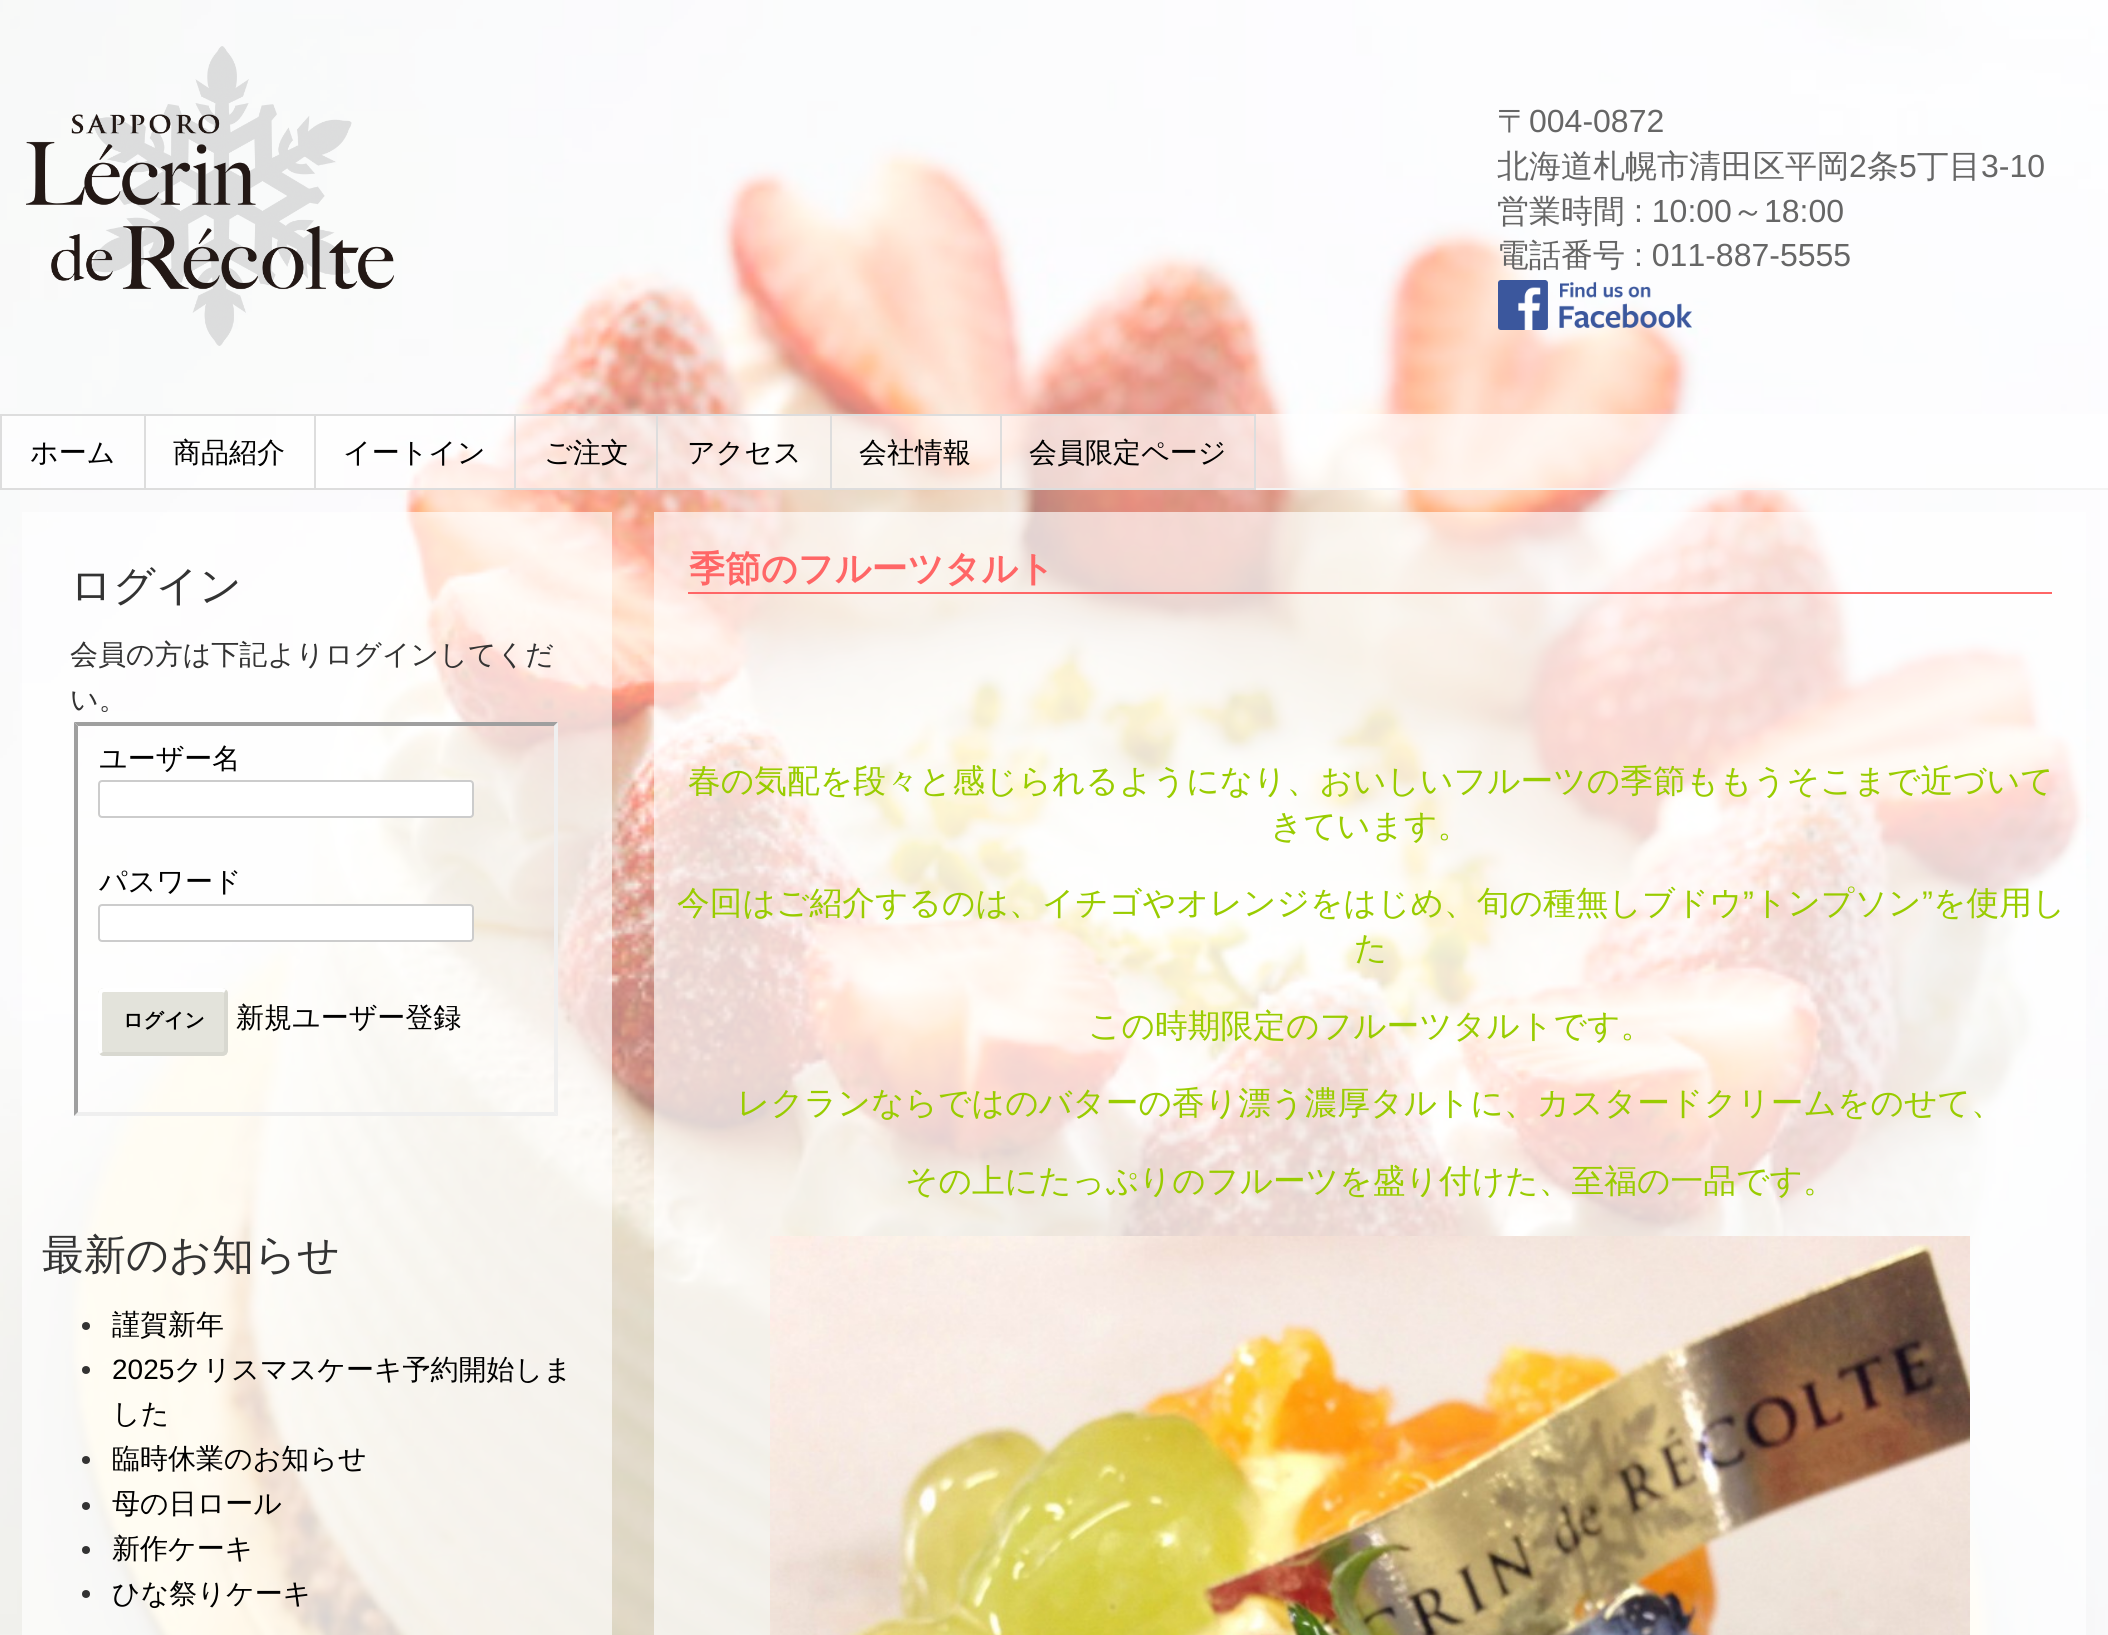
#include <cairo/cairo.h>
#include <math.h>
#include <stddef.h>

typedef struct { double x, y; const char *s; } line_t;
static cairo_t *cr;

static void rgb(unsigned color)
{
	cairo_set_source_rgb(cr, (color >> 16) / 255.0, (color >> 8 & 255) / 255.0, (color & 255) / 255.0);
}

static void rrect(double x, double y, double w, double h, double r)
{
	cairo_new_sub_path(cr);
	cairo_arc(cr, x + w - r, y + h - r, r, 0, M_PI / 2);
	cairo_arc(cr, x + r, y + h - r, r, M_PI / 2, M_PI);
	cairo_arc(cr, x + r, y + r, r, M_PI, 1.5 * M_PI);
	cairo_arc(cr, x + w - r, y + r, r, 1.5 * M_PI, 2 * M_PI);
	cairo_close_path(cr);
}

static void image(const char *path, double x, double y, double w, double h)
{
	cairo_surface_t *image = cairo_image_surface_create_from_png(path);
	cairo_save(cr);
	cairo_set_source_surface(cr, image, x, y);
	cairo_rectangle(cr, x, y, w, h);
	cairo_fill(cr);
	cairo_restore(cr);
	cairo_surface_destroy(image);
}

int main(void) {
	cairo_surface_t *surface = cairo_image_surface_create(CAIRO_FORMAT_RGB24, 2108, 1635);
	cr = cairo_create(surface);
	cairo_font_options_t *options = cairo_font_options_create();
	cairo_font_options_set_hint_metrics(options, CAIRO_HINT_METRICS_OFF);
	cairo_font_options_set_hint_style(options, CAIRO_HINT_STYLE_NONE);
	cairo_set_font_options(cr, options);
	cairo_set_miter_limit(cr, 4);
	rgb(0xffffff);
	cairo_paint(cr);
	image("img/1.png", 0, 0, 2108, 1635);
	rgb(0xdddddd);
	cairo_rectangle(cr, 1256, 488, 852, 2);
	cairo_fill(cr);
	image("img/2.png", 26, 46, 368, 300);
	image("img/3.png", 1498, 280, 194, 50);
	cairo_set_source_rgba(cr, 1, 1, 1, 0.65);
	cairo_rectangle(cr, 2, 414, 2106, 76);
	cairo_fill(cr);
	rgb(0xdddddd);
	cairo_rectangle(cr, 0, 414, 2, 76);
	cairo_fill(cr);
	cairo_rectangle(cr, 2, 414, 1254, 2);
	cairo_fill(cr);
	cairo_rectangle(cr, 144, 414, 2, 76);
	cairo_fill(cr);
	cairo_rectangle(cr, 2, 488, 144, 2);
	cairo_fill(cr);
	cairo_rectangle(cr, 314, 414, 2, 76);
	cairo_fill(cr);
	cairo_rectangle(cr, 146, 488, 170, 2);
	cairo_fill(cr);
	cairo_rectangle(cr, 514, 414, 2, 76);
	cairo_fill(cr);
	cairo_rectangle(cr, 316, 488, 200, 2);
	cairo_fill(cr);
	cairo_rectangle(cr, 656, 414, 2, 76);
	cairo_fill(cr);
	cairo_rectangle(cr, 516, 488, 142, 2);
	cairo_fill(cr);
	cairo_rectangle(cr, 830, 414, 2, 76);
	cairo_fill(cr);
	cairo_rectangle(cr, 658, 488, 174, 2);
	cairo_fill(cr);
	cairo_rectangle(cr, 1000, 414, 2, 76);
	cairo_fill(cr);
	cairo_rectangle(cr, 832, 488, 170, 2);
	cairo_fill(cr);
	cairo_rectangle(cr, 1254, 414, 2, 76);
	cairo_fill(cr);
	cairo_rectangle(cr, 1002, 488, 254, 2);
	cairo_fill(cr);
	cairo_set_source_rgba(cr, 1, 1, 1, 0.65);
	cairo_rectangle(cr, 22, 512, 590, 1123);
	cairo_fill(cr);
	rgb(0x9f9f9f);
	cairo_new_path(cr);
	cairo_move_to(cr, 74, 722);
	cairo_line_to(cr, 558, 722);
	cairo_line_to(cr, 554, 726);
	cairo_line_to(cr, 78, 726);
	cairo_close_path(cr);
	cairo_fill(cr);
	rgb(0xefefef);
	cairo_new_path(cr);
	cairo_move_to(cr, 558, 722);
	cairo_line_to(cr, 558, 1116);
	cairo_line_to(cr, 554, 1112);
	cairo_line_to(cr, 554, 726);
	cairo_close_path(cr);
	cairo_fill(cr);
	cairo_new_path(cr);
	cairo_move_to(cr, 558, 1116);
	cairo_line_to(cr, 74, 1116);
	cairo_line_to(cr, 78, 1112);
	cairo_line_to(cr, 554, 1112);
	cairo_close_path(cr);
	cairo_fill(cr);
	rgb(0x9f9f9f);
	cairo_new_path(cr);
	cairo_move_to(cr, 74, 1116);
	cairo_line_to(cr, 74, 722);
	cairo_line_to(cr, 78, 726);
	cairo_line_to(cr, 78, 1112);
	cairo_close_path(cr);
	cairo_fill(cr);
	rgb(0xffffff);
	rrect(99, 781, 374, 36, 3);
	cairo_fill_preserve(cr);
	rgb(0xcccccc);
	cairo_stroke(cr);
	rgb(0xffffff);
	rrect(99, 905, 374, 36, 3);
	cairo_fill_preserve(cr);
	rgb(0xcccccc);
	cairo_stroke(cr);
	rgb(0xe3e3db);
	rrect(98, 988, 130, 68, 6);
	cairo_fill(cr);
	cairo_new_path(cr);
	cairo_move_to(cr, 225, 991);
	cairo_curve_to(cr, 225.5, 992, 226, 993, 226, 994);
	cairo_line_to(cr, 226, 1050);
	cairo_curve_to(cr, 226, 1051, 225.5, 1052, 225, 1053);
	cairo_curve_to(cr, 224, 1053.5, 223, 1054, 222, 1054);
	cairo_line_to(cr, 104, 1054);
	cairo_curve_to(cr, 103, 1054, 102, 1053.5, 101, 1053);
	rgb(0xd8d8d0);
	cairo_set_line_width(cr, 4);
	cairo_stroke(cr);
	cairo_new_path(cr);
	cairo_move_to(cr, 101, 1053);
	cairo_curve_to(cr, 100.5, 1052, 100, 1051, 100, 1050);
	cairo_line_to(cr, 100, 994);
	cairo_curve_to(cr, 100, 993, 100.5, 992, 101, 991);
	cairo_curve_to(cr, 102, 990.5, 103, 990, 104, 990);
	cairo_line_to(cr, 222, 990);
	cairo_curve_to(cr, 223, 990, 224, 990.5, 225, 991);
	rgb(0xffffff);
	cairo_stroke(cr);
	rgb(0x333333);
	cairo_arc(cr, 86, 1326, 4, 0, 2 * M_PI);
	cairo_fill(cr);
	cairo_arc(cr, 86, 1370, 4, 0, 2 * M_PI);
	cairo_fill(cr);
	cairo_arc(cr, 86, 1460, 4, 0, 2 * M_PI);
	cairo_fill(cr);
	cairo_arc(cr, 86, 1506, 4, 0, 2 * M_PI);
	cairo_fill(cr);
	cairo_arc(cr, 86, 1550, 4, 0, 2 * M_PI);
	cairo_fill(cr);
	cairo_arc(cr, 86, 1594, 4, 0, 2 * M_PI);
	cairo_fill(cr);
	cairo_set_source_rgba(cr, 1, 1, 1, 0.65);
	cairo_rectangle(cr, 654, 512, 1432, 1123);
	cairo_fill(cr);
	rgb(0xff6666);
	cairo_rectangle(cr, 688, 592, 1364, 2);
	cairo_fill(cr);
	image("img/4.png", 770, 1236, 1200, 399);
	cairo_select_font_face(cr, "WenQuanYi Zen Hei Medium", CAIRO_FONT_SLANT_NORMAL, CAIRO_FONT_WEIGHT_NORMAL);
	cairo_set_font_size(cr, 32);
	rgb(0x666666);
	cairo_move_to(cr, 1497, 132);
	cairo_show_text(cr, "〒");
	cairo_select_font_face(cr, "Liberation Sans", CAIRO_FONT_SLANT_NORMAL, CAIRO_FONT_WEIGHT_NORMAL);
	cairo_move_to(cr, 1529, 132);
	cairo_show_text(cr, "004-0872");
	cairo_select_font_face(cr, "WenQuanYi Zen Hei Medium", CAIRO_FONT_SLANT_NORMAL, CAIRO_FONT_WEIGHT_NORMAL);
	cairo_move_to(cr, 1497, 177);
	cairo_show_text(cr, "北海道札幌市清田区平岡");
	cairo_select_font_face(cr, "Liberation Sans", CAIRO_FONT_SLANT_NORMAL, CAIRO_FONT_WEIGHT_NORMAL);
	cairo_move_to(cr, 1849, 177);
	cairo_show_text(cr, "2");
	cairo_select_font_face(cr, "WenQuanYi Zen Hei Medium", CAIRO_FONT_SLANT_NORMAL, CAIRO_FONT_WEIGHT_NORMAL);
	cairo_move_to(cr, 1867, 177);
	cairo_show_text(cr, "条");
	cairo_select_font_face(cr, "Liberation Sans", CAIRO_FONT_SLANT_NORMAL, CAIRO_FONT_WEIGHT_NORMAL);
	cairo_move_to(cr, 1899, 177);
	cairo_show_text(cr, "5");
	cairo_select_font_face(cr, "WenQuanYi Zen Hei Medium", CAIRO_FONT_SLANT_NORMAL, CAIRO_FONT_WEIGHT_NORMAL);
	cairo_move_to(cr, 1917, 177);
	cairo_show_text(cr, "丁目");
	cairo_select_font_face(cr, "Liberation Sans", CAIRO_FONT_SLANT_NORMAL, CAIRO_FONT_WEIGHT_NORMAL);
	cairo_move_to(cr, 1981, 177);
	cairo_show_text(cr, "3-10");
	cairo_select_font_face(cr, "WenQuanYi Zen Hei Medium", CAIRO_FONT_SLANT_NORMAL, CAIRO_FONT_WEIGHT_NORMAL);
	cairo_move_to(cr, 1497, 222);
	cairo_show_text(cr, "営業時間");
	cairo_select_font_face(cr, "Liberation Sans", CAIRO_FONT_SLANT_NORMAL, CAIRO_FONT_WEIGHT_NORMAL);
	cairo_move_to(cr, 1634, 222);
	cairo_show_text(cr, ": 10:00");
	cairo_select_font_face(cr, "WenQuanYi Zen Hei Medium", CAIRO_FONT_SLANT_NORMAL, CAIRO_FONT_WEIGHT_NORMAL);
	cairo_move_to(cr, 1732, 222);
	cairo_show_text(cr, "～");
	cairo_select_font_face(cr, "Liberation Sans", CAIRO_FONT_SLANT_NORMAL, CAIRO_FONT_WEIGHT_NORMAL);
	cairo_move_to(cr, 1764, 222);
	cairo_show_text(cr, "18:00");
	cairo_select_font_face(cr, "WenQuanYi Zen Hei Medium", CAIRO_FONT_SLANT_NORMAL, CAIRO_FONT_WEIGHT_NORMAL);
	cairo_move_to(cr, 1497, 266);
	cairo_show_text(cr, "電話番号");
	cairo_select_font_face(cr, "Liberation Sans", CAIRO_FONT_SLANT_NORMAL, CAIRO_FONT_WEIGHT_NORMAL);
	cairo_move_to(cr, 1634, 266);
	cairo_show_text(cr, ": 011-887-5555");
	cairo_select_font_face(cr, "WenQuanYi Zen Hei Medium", CAIRO_FONT_SLANT_NORMAL, CAIRO_FONT_WEIGHT_NORMAL);
	cairo_set_font_size(cr, 28);
	rgb(0x000000);
	{
		static const line_t items[] = {
			{30, 462, "ホーム"},
			{173, 462, "商品紹介"},
			{343, 462, "イートイン"},
			{544, 462, "ご注文"},
			{687, 462, "アクセス"},
			{859, 462, "会社情報"},
			{1029, 462, "会員限定ページ"},
		};
		for (size_t i = 0; i < sizeof items / sizeof *items; i++) {
			cairo_move_to(cr, items[i].x, items[i].y);
			cairo_show_text(cr, items[i].s);
		}
	}
	cairo_set_font_size(cr, 42);
	rgb(0x333333);
	cairo_move_to(cr, 70, 600);
	cairo_show_text(cr, "ログイン");
	cairo_set_font_size(cr, 28);
	cairo_move_to(cr, 70, 664);
	cairo_show_text(cr, "会員の方は下記よりログインしてくだ");
	cairo_move_to(cr, 70, 709);
	cairo_show_text(cr, "い。");
	rgb(0x000000);
	cairo_move_to(cr, 99, 768);
	cairo_show_text(cr, "ユーザー名");
	cairo_move_to(cr, 99, 891);
	cairo_show_text(cr, "パスワード");
	cairo_select_font_face(cr, "WenQuanYi Zen Hei", CAIRO_FONT_SLANT_NORMAL, CAIRO_FONT_WEIGHT_BOLD);
	cairo_set_font_size(cr, 20);
	cairo_move_to(cr, 123, 1027);
	cairo_show_text(cr, "ログイン");
	cairo_select_font_face(cr, "WenQuanYi Zen Hei Medium", CAIRO_FONT_SLANT_NORMAL, CAIRO_FONT_WEIGHT_NORMAL);
	cairo_set_font_size(cr, 28);
	cairo_move_to(cr, 236, 1027);
	cairo_show_text(cr, "新規ユーザー登録");
	cairo_set_font_size(cr, 42);
	rgb(0x333333);
	cairo_move_to(cr, 42, 1269);
	cairo_show_text(cr, "最新のお知らせ");
	cairo_set_font_size(cr, 28);
	rgb(0x000000);
	cairo_move_to(cr, 112, 1334);
	cairo_show_text(cr, "謹賀新年");
	cairo_select_font_face(cr, "Liberation Sans", CAIRO_FONT_SLANT_NORMAL, CAIRO_FONT_WEIGHT_NORMAL);
	cairo_move_to(cr, 112, 1379);
	cairo_show_text(cr, "2025");
	cairo_select_font_face(cr, "WenQuanYi Zen Hei Medium", CAIRO_FONT_SLANT_NORMAL, CAIRO_FONT_WEIGHT_NORMAL);
	{
		static const line_t items[] = {
			{174, 1379, "クリスマスケーキ予約開始しま"},
			{112, 1423, "した"},
			{112, 1468, "臨時休業のお知らせ"},
			{112, 1513, "母の日ロール"},
			{112, 1558, "新作ケーキ"},
			{112, 1603, "ひな祭りケーキ"},
		};
		for (size_t i = 0; i < sizeof items / sizeof *items; i++) {
			cairo_move_to(cr, items[i].x, items[i].y);
			cairo_show_text(cr, items[i].s);
		}
	}
	cairo_select_font_face(cr, "WenQuanYi Zen Hei", CAIRO_FONT_SLANT_NORMAL, CAIRO_FONT_WEIGHT_BOLD);
	cairo_set_font_size(cr, 36);
	rgb(0xff6666);
	cairo_move_to(cr, 689, 581);
	cairo_show_text(cr, "季節のフルーツタルト");
	cairo_select_font_face(cr, "WenQuanYi Zen Hei Medium", CAIRO_FONT_SLANT_NORMAL, CAIRO_FONT_WEIGHT_NORMAL);
	cairo_set_font_size(cr, 32.75);
	rgb(0x99cc00);
	{
		static const line_t items[] = {
			{688, 792, "春の気配を段々と感じられるようになり、おいしいフルーツの季節ももうそこまで近づいて"},
			{1270, 837, "きています。"},
			{677, 914, "今回はご紹介するのは、イチゴやオレンジをはじめ、旬の種無しブドウ"},
		};
		for (size_t i = 0; i < sizeof items / sizeof *items; i++) {
			cairo_move_to(cr, items[i].x, items[i].y);
			cairo_show_text(cr, items[i].s);
		}
	}
	cairo_select_font_face(cr, "Liberation Sans", CAIRO_FONT_SLANT_NORMAL, CAIRO_FONT_WEIGHT_NORMAL);
	cairo_move_to(cr, 1743, 914);
	cairo_show_text(cr, "”");
	cairo_select_font_face(cr, "WenQuanYi Zen Hei Medium", CAIRO_FONT_SLANT_NORMAL, CAIRO_FONT_WEIGHT_NORMAL);
	cairo_move_to(cr, 1754, 914);
	cairo_show_text(cr, "トンプソン");
	cairo_select_font_face(cr, "Liberation Sans", CAIRO_FONT_SLANT_NORMAL, CAIRO_FONT_WEIGHT_NORMAL);
	cairo_move_to(cr, 1922, 914);
	cairo_show_text(cr, "”");
	cairo_select_font_face(cr, "WenQuanYi Zen Hei Medium", CAIRO_FONT_SLANT_NORMAL, CAIRO_FONT_WEIGHT_NORMAL);
	{
		static const line_t items[] = {
			{1933, 914, "を使用し"},
			{1354, 959, "た"},
			{1088, 1037, "この時期限定のフルーツタルトです。"},
			{737, 1114, "レクランならではのバターの香り漂う濃厚タルトに、カスタードクリームをのせて、"},
			{905, 1192, "その上にたっぷりのフルーツを盛り付けた、至福の一品です。"},
		};
		for (size_t i = 0; i < sizeof items / sizeof *items; i++) {
			cairo_move_to(cr, items[i].x, items[i].y);
			cairo_show_text(cr, items[i].s);
		}
	}
	cairo_surface_write_to_png(surface, "page.png");
	cairo_font_options_destroy(options);
	cairo_destroy(cr);
	cairo_surface_destroy(surface);
	return 0;
}
